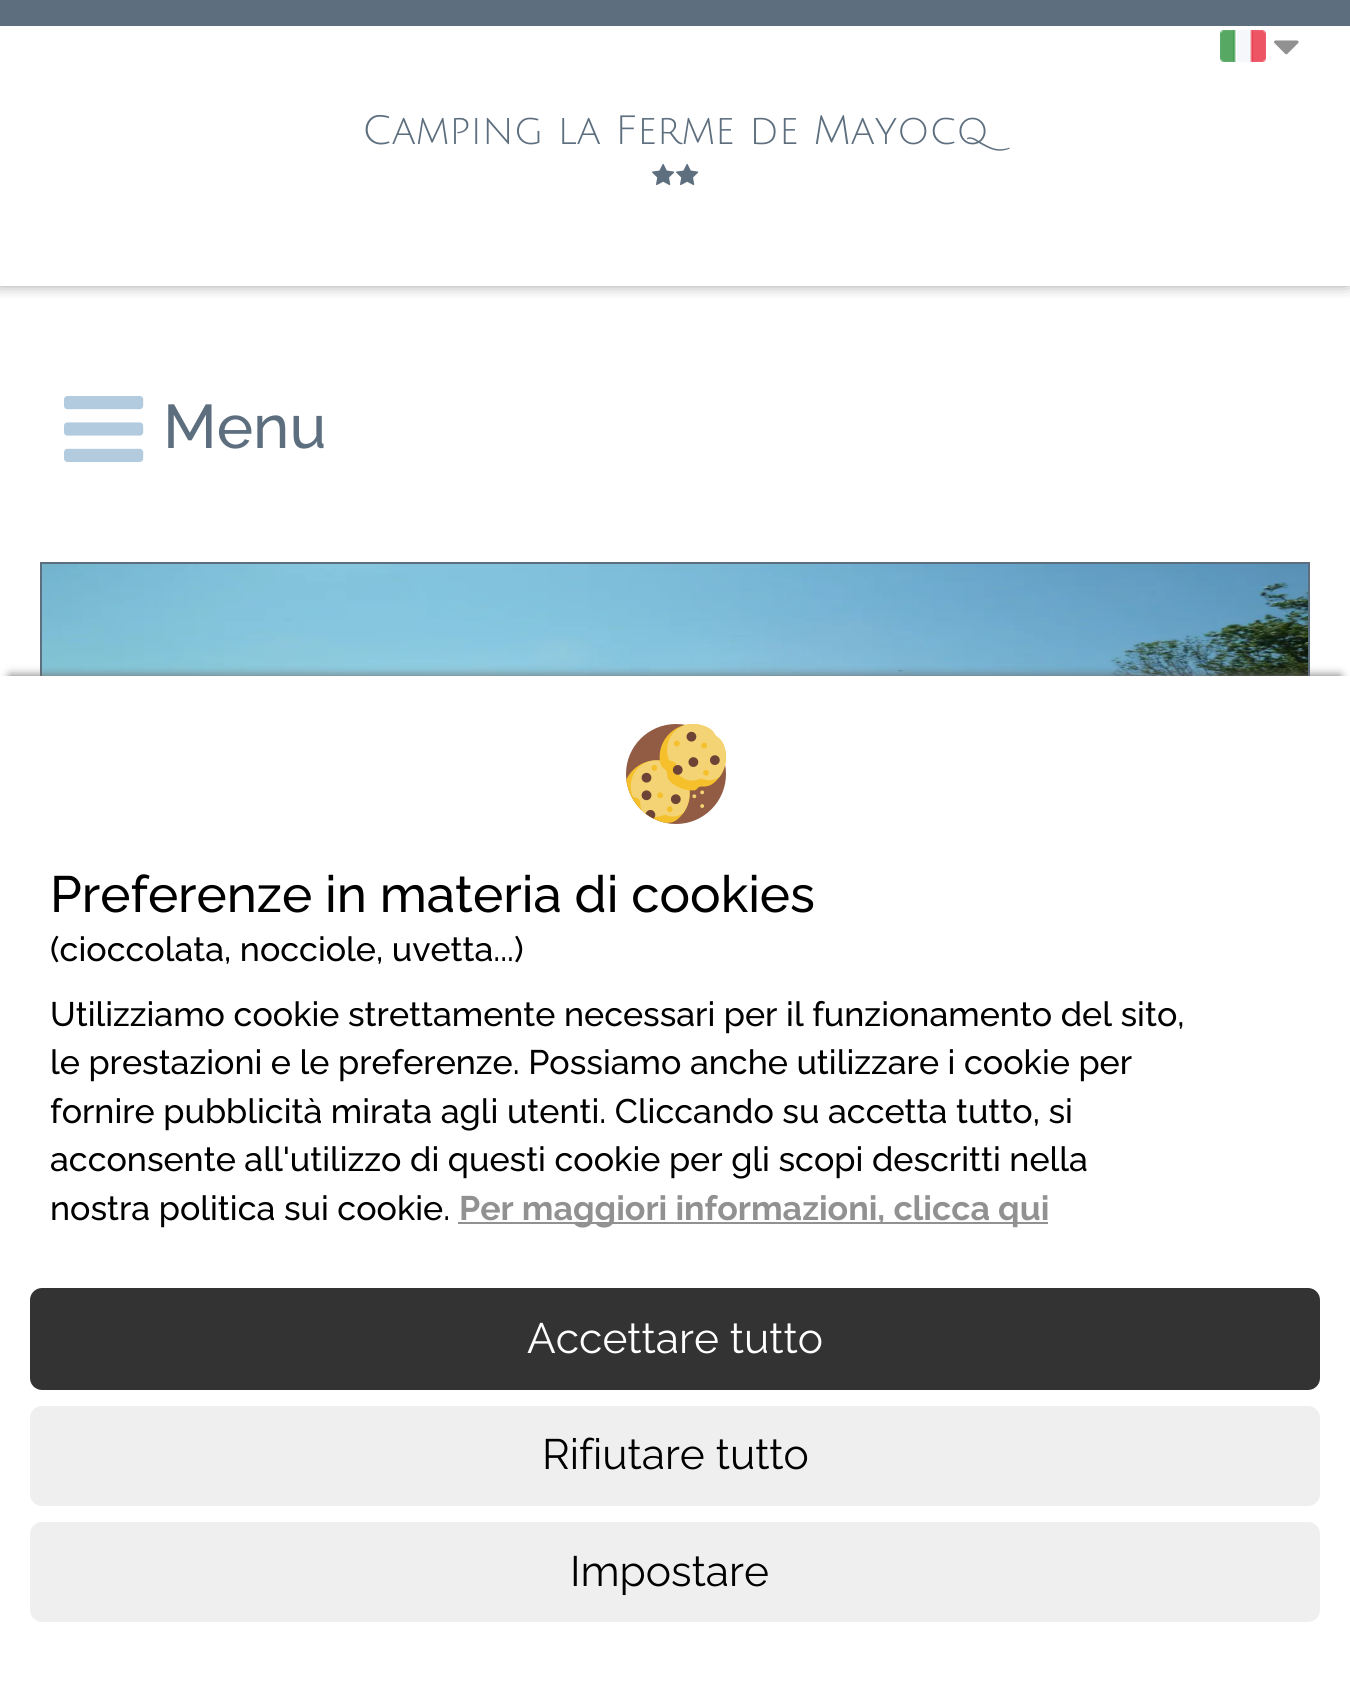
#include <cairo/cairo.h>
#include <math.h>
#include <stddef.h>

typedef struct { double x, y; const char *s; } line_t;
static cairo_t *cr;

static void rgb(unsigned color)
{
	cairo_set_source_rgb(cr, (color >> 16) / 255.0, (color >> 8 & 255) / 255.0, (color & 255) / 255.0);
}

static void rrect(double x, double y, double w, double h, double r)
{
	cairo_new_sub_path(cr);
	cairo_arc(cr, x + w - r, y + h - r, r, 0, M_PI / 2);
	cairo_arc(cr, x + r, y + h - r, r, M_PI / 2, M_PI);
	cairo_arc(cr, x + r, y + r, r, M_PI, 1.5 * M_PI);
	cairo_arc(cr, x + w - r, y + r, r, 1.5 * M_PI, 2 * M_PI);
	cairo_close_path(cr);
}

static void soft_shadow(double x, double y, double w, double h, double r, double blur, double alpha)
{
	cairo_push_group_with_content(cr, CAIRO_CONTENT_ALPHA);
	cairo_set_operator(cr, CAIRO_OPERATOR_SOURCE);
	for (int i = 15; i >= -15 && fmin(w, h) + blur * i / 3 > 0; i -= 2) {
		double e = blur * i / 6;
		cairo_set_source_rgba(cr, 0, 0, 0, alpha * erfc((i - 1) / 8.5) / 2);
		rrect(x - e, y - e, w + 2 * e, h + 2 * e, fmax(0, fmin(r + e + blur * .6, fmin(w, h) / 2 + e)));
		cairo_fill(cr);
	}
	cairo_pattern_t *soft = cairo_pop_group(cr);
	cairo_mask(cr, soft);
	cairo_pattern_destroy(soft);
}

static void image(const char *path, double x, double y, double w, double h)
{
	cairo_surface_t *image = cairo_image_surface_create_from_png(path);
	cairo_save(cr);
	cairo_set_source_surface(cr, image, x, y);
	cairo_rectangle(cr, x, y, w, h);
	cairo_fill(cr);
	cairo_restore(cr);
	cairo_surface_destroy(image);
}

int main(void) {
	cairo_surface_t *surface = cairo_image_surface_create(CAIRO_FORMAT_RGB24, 1350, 1686);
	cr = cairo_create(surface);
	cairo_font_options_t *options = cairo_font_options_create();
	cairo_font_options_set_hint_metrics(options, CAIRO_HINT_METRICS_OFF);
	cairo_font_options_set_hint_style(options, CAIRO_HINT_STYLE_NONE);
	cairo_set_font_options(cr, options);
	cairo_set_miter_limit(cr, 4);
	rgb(0xffffff);
	cairo_paint(cr);
	cairo_save(cr);
	cairo_rectangle(cr, 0, 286, 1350, 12);
	cairo_clip(cr);
	rgb(0x454545);
	soft_shadow(-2, -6, 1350, 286, 0, 9, 1);
	cairo_restore(cr);
	rgb(0x5d6e7e);
	cairo_rectangle(cr, 0, 0, 1350, 26);
	cairo_fill(cr);
	image("img/1.png", 1220, 30, 46, 32);
	image("img/2.png", 1274, 40, 25, 15);
	image("img/3.png", 652, 163, 23, 23);
	image("img/3.png", 676, 163, 23, 23);
	image("img/4.png", 64, 396, 80, 66);
	cairo_rectangle(cr, 40, 562, 1270, 114);
	cairo_fill(cr);
	image("img/5.png", 42, 564, 1266, 112);
	rgb(0x696969);
	soft_shadow(10, 676, 1330, 990, 0, 5, 1);
	rgb(0xffffff);
	cairo_rectangle(cr, 0, 676, 1350, 1001);
	cairo_fill(cr);
	image("img/6.png", 626, 724, 100, 100);
	rgb(0x919191);
	cairo_rectangle(cr, 458, 1222, 590, 2);
	cairo_fill(cr);
	rgb(0x333333);
	rrect(30, 1288, 1290, 102, 12);
	cairo_fill(cr);
	rgb(0xefefef);
	rrect(30, 1406, 1290, 100, 12);
	cairo_fill(cr);
	rrect(30, 1522, 1290, 100, 12);
	cairo_fill(cr);
	cairo_select_font_face(cr, "Julius Sans One", CAIRO_FONT_SLANT_NORMAL, CAIRO_FONT_WEIGHT_NORMAL);
	cairo_set_font_size(cr, 40);
	rgb(0x5d6e7e);
	cairo_move_to(cr, 362, 144);
	cairo_show_text(cr, "Camping la Ferme de Mayocq");
	cairo_select_font_face(cr, "Raleway Medium", CAIRO_FONT_SLANT_NORMAL, CAIRO_FONT_WEIGHT_NORMAL);
	cairo_set_font_size(cr, 61.5);
	cairo_move_to(cr, 163, 448);
	cairo_show_text(cr, "Menu");
	cairo_set_font_size(cr, 51);
	rgb(0x000000);
	cairo_move_to(cr, 50, 912);
	cairo_show_text(cr, "Preferenze in materia di cookies");
	cairo_set_font_size(cr, 34);
	{
		static const line_t items[] = {
			{50, 961, "(cioccolata, nocciole, uvetta...)"},
			{50, 1026, "Utilizziamo cookie strettamente necessari per il funzionamento del sito,"},
			{50, 1074, "le prestazioni e le preferenze. Possiamo anche utilizzare i cookie per"},
			{50, 1123, "fornire pubblicità mirata agli utenti. Cliccando su accetta tutto, si"},
			{50, 1171, "acconsente all'utilizzo di questi cookie per gli scopi descritti nella"},
			{50, 1220, "nostra politica sui cookie."},
		};
		for (size_t i = 0; i < sizeof items / sizeof *items; i++) {
			cairo_move_to(cr, items[i].x, items[i].y);
			cairo_show_text(cr, items[i].s);
		}
	}
	cairo_select_font_face(cr, "Raleway", CAIRO_FONT_SLANT_NORMAL, CAIRO_FONT_WEIGHT_BOLD);
	rgb(0x919191);
	cairo_move_to(cr, 459, 1220);
	cairo_show_text(cr, "Per maggiori informazioni, clicca qui");
	cairo_select_font_face(cr, "Raleway", CAIRO_FONT_SLANT_NORMAL, CAIRO_FONT_WEIGHT_NORMAL);
	cairo_set_font_size(cr, 42.5);
	rgb(0xffffff);
	cairo_move_to(cr, 527, 1353);
	cairo_show_text(cr, "Accettare tutto");
	rgb(0x000000);
	cairo_move_to(cr, 542, 1469);
	cairo_show_text(cr, "Rifiutare tutto");
	cairo_move_to(cr, 570, 1586);
	cairo_show_text(cr, "Impostare");
	cairo_surface_write_to_png(surface, "page.png");
	cairo_font_options_destroy(options);
	cairo_destroy(cr);
	cairo_surface_destroy(surface);
	return 0;
}
